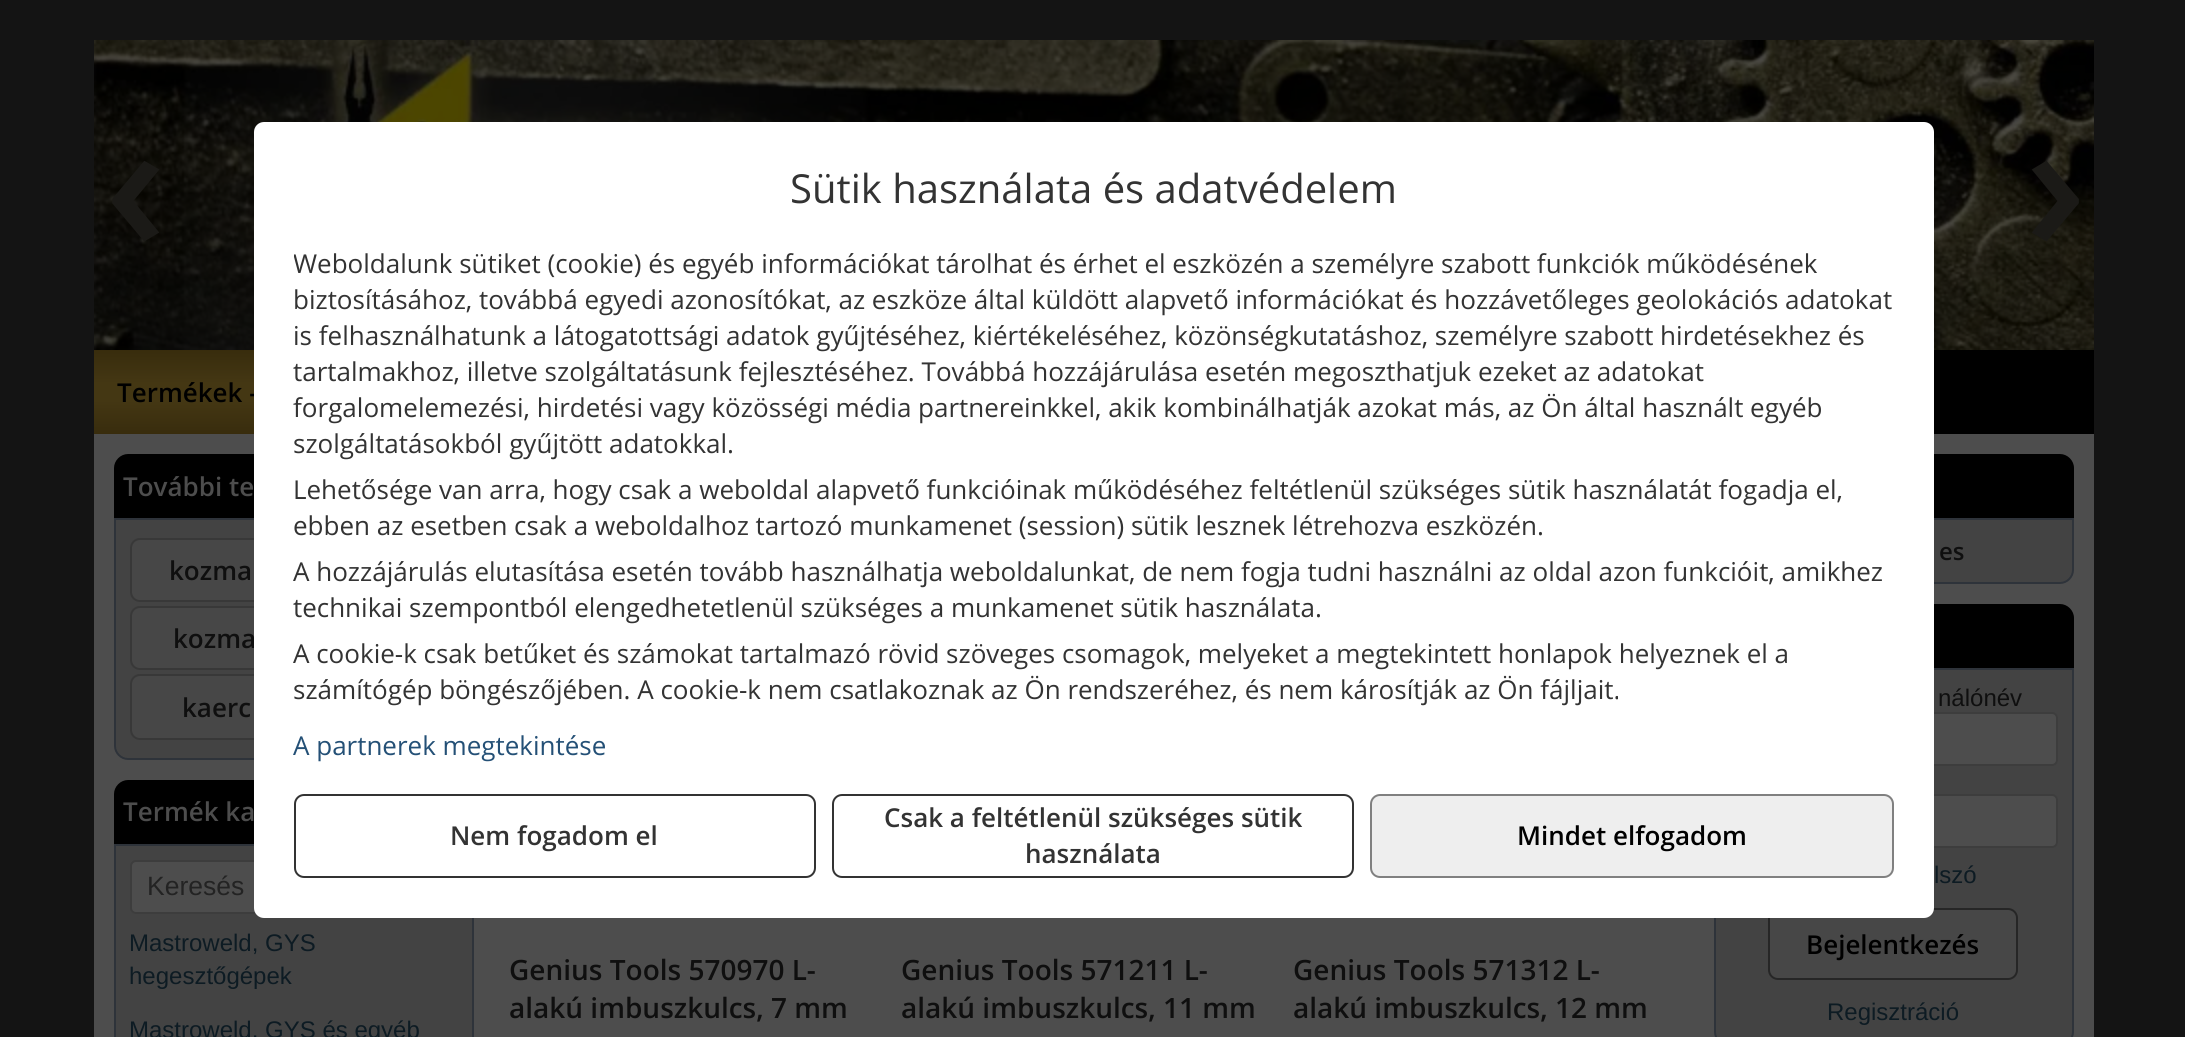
#include <cairo/cairo.h>
#include <math.h>
#include <stddef.h>

typedef struct { double x, y; const char *s; } line_t;
static cairo_t *cr;

static void rgb(unsigned color)
{
	cairo_set_source_rgb(cr, (color >> 16) / 255.0, (color >> 8 & 255) / 255.0, (color & 255) / 255.0);
}

static void rrect(double x, double y, double w, double h, double r)
{
	cairo_new_sub_path(cr);
	cairo_arc(cr, x + w - r, y + h - r, r, 0, M_PI / 2);
	cairo_arc(cr, x + r, y + h - r, r, M_PI / 2, M_PI);
	cairo_arc(cr, x + r, y + r, r, M_PI, 1.5 * M_PI);
	cairo_arc(cr, x + w - r, y + r, r, 1.5 * M_PI, 2 * M_PI);
	cairo_close_path(cr);
}

static void image(const char *path, double x, double y, double w, double h)
{
	cairo_surface_t *image = cairo_image_surface_create_from_png(path);
	cairo_save(cr);
	cairo_set_source_surface(cr, image, x, y);
	cairo_rectangle(cr, x, y, w, h);
	cairo_fill(cr);
	cairo_restore(cr);
	cairo_surface_destroy(image);
}

int main(void) {
	cairo_surface_t *surface = cairo_image_surface_create(CAIRO_FORMAT_RGB24, 2185, 1037);
	cr = cairo_create(surface);
	cairo_font_options_t *options = cairo_font_options_create();
	cairo_font_options_set_hint_metrics(options, CAIRO_HINT_METRICS_OFF);
	cairo_font_options_set_hint_style(options, CAIRO_HINT_STYLE_NONE);
	cairo_set_font_options(cr, options);
	cairo_set_miter_limit(cr, 4);
	cairo_pattern_t *gradient;
	rgb(0x141414);
	cairo_paint(cr);
	rgb(0x4d4d4d);
	cairo_rectangle(cr, 94, 434, 2000, 603);
	cairo_fill(cr);
	image("img/1.png", 94, 40, 2000, 310);
	rgb(0x000000);
	cairo_rectangle(cr, 1934, 350, 160, 84);
	cairo_fill(cr);
	gradient = cairo_pattern_create_linear(248, 350, 248, 434);
	cairo_pattern_add_color_stop_rgba(gradient, 0, 0.22, 0.173, 0.051, 1);
	cairo_pattern_add_color_stop_rgba(gradient, 0.4, 0.267, 0.216, 0.075, 1);
	cairo_pattern_add_color_stop_rgba(gradient, 0.6, 0.267, 0.216, 0.075, 1);
	cairo_pattern_add_color_stop_rgba(gradient, 1, 0.22, 0.173, 0.051, 1);
	cairo_set_source(cr, gradient);
	cairo_pattern_destroy(gradient);
	cairo_rectangle(cr, 94, 350, 160, 84);
	cairo_fill(cr);
	rgb(0x000000);
	cairo_new_path(cr);
	cairo_move_to(cr, 128, 454);
	cairo_line_to(cr, 460, 454);
	cairo_curve_to(cr, 467.5, 454, 474, 460.5, 474, 468);
	cairo_line_to(cr, 474, 518);
	cairo_line_to(cr, 114, 518);
	cairo_line_to(cr, 114, 468);
	cairo_curve_to(cr, 114, 460.5, 120.5, 454, 128, 454);
	cairo_close_path(cr);
	cairo_fill(cr);
	rgb(0x434343);
	cairo_new_path(cr);
	cairo_move_to(cr, 115, 519);
	cairo_line_to(cr, 473, 519);
	cairo_line_to(cr, 473, 746);
	cairo_curve_to(cr, 473, 753, 467, 759, 460, 759);
	cairo_line_to(cr, 128, 759);
	cairo_curve_to(cr, 121, 759, 115, 753, 115, 746);
	cairo_close_path(cr);
	cairo_fill_preserve(cr);
	rgb(0x2e333a);
	cairo_stroke(cr);
	rgb(0x474747);
	rrect(131, 539, 326, 62, 9);
	cairo_fill_preserve(cr);
	rgb(0x383838);
	cairo_stroke(cr);
	rgb(0x474747);
	rrect(131, 607, 326, 62, 9);
	cairo_fill_preserve(cr);
	rgb(0x383838);
	cairo_stroke(cr);
	rgb(0x474747);
	rrect(131, 675, 326, 64, 9);
	cairo_fill_preserve(cr);
	rgb(0x383838);
	cairo_stroke(cr);
	rgb(0x000000);
	cairo_new_path(cr);
	cairo_move_to(cr, 128, 780);
	cairo_line_to(cr, 460, 780);
	cairo_curve_to(cr, 467.5, 780, 474, 786.5, 474, 794);
	cairo_line_to(cr, 474, 844);
	cairo_line_to(cr, 114, 844);
	cairo_line_to(cr, 114, 794);
	cairo_curve_to(cr, 114, 786.5, 120.5, 780, 128, 780);
	cairo_close_path(cr);
	cairo_fill(cr);
	rgb(0x434343);
	cairo_rectangle(cr, 115, 845, 358, 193);
	cairo_fill_preserve(cr);
	rgb(0x2e333a);
	cairo_stroke(cr);
	rgb(0x4d4d4d);
	rrect(131, 861, 308, 52, 5);
	cairo_fill_preserve(cr);
	rgb(0x3d3d3d);
	cairo_stroke(cr);
	rgb(0x000000);
	cairo_new_path(cr);
	cairo_move_to(cr, 1728, 454);
	cairo_line_to(cr, 2060, 454);
	cairo_curve_to(cr, 2067.5, 454, 2074, 460.5, 2074, 468);
	cairo_line_to(cr, 2074, 518);
	cairo_line_to(cr, 1714, 518);
	cairo_line_to(cr, 1714, 468);
	cairo_curve_to(cr, 1714, 460.5, 1720.5, 454, 1728, 454);
	cairo_close_path(cr);
	cairo_fill(cr);
	rgb(0x434343);
	cairo_new_path(cr);
	cairo_move_to(cr, 1715, 519);
	cairo_line_to(cr, 2073, 519);
	cairo_line_to(cr, 2073, 570);
	cairo_curve_to(cr, 2073, 577, 2067, 583, 2060, 583);
	cairo_line_to(cr, 1728, 583);
	cairo_curve_to(cr, 1721, 583, 1715, 577, 1715, 570);
	cairo_close_path(cr);
	cairo_fill_preserve(cr);
	rgb(0x2e333a);
	cairo_stroke(cr);
	rgb(0x000000);
	cairo_new_path(cr);
	cairo_move_to(cr, 1728, 604);
	cairo_line_to(cr, 2060, 604);
	cairo_curve_to(cr, 2067.5, 604, 2074, 610.5, 2074, 618);
	cairo_line_to(cr, 2074, 668);
	cairo_line_to(cr, 1714, 668);
	cairo_line_to(cr, 1714, 618);
	cairo_curve_to(cr, 1714, 610.5, 1720.5, 604, 1728, 604);
	cairo_close_path(cr);
	cairo_fill(cr);
	rgb(0x434343);
	cairo_new_path(cr);
	cairo_move_to(cr, 1715, 669);
	cairo_line_to(cr, 2073, 669);
	cairo_line_to(cr, 2073, 1032);
	cairo_curve_to(cr, 2073, 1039, 2067, 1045, 2060, 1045);
	cairo_line_to(cr, 1728, 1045);
	cairo_curve_to(cr, 1721, 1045, 1715, 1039, 1715, 1032);
	cairo_close_path(cr);
	cairo_fill_preserve(cr);
	rgb(0x2e333a);
	cairo_stroke(cr);
	rgb(0x4d4d4d);
	rrect(1731, 713, 326, 52, 5);
	cairo_fill_preserve(cr);
	rgb(0x3d3d3d);
	cairo_stroke(cr);
	rgb(0x4d4d4d);
	rrect(1731, 795, 326, 52, 5);
	cairo_fill_preserve(cr);
	rgb(0x3d3d3d);
	cairo_stroke(cr);
	rgb(0x474747);
	rrect(1769, 909, 248, 70, 9);
	cairo_fill_preserve(cr);
	rgb(0x262626);
	cairo_stroke(cr);
	cairo_select_font_face(cr, "Open Sans", CAIRO_FONT_SLANT_NORMAL, CAIRO_FONT_WEIGHT_BOLD);
	cairo_set_font_size(cr, 180);
	rgb(0x1b1a17);
	cairo_move_to(cr, 105, 251);
	cairo_show_text(cr, "‹");
	cairo_move_to(cr, 2026, 251);
	cairo_show_text(cr, "›");
	cairo_select_font_face(cr, "Open Sans SemiBold", CAIRO_FONT_SLANT_NORMAL, CAIRO_FONT_WEIGHT_NORMAL);
	cairo_set_font_size(cr, 26);
	rgb(0x000000);
	cairo_move_to(cr, 117, 402);
	cairo_show_text(cr, "Termékek -");
	rgb(0x4d4d4d);
	cairo_move_to(cr, 123, 496);
	cairo_show_text(cr, "További te");
	rgb(0x0f0f0f);
	{
		static const line_t items[] = {
			{169, 580, "kozma"},
			{173, 648, "kozma"},
			{182, 717, "kaerc"},
		};
		for (size_t i = 0; i < sizeof items / sizeof *items; i++) {
			cairo_move_to(cr, items[i].x, items[i].y);
			cairo_show_text(cr, items[i].s);
		}
	}
	rgb(0x4d4d4d);
	cairo_move_to(cr, 123, 821);
	cairo_show_text(cr, "Termék ka");
	cairo_select_font_face(cr, "Liberation Sans", CAIRO_FONT_SLANT_NORMAL, CAIRO_FONT_WEIGHT_NORMAL);
	cairo_set_font_size(cr, 26.5);
	rgb(0x232323);
	cairo_move_to(cr, 147, 895);
	cairo_show_text(cr, "Keresés");
	cairo_set_font_size(cr, 24);
	rgb(0x0d1b23);
	{
		static const line_t items[] = {
			{129, 951, "Mastroweld, GYS"},
			{129, 984, "hegesztőgépek"},
			{129, 1038, "Mastroweld, GYS és egyéb"},
		};
		for (size_t i = 0; i < sizeof items / sizeof *items; i++) {
			cairo_move_to(cr, items[i].x, items[i].y);
			cairo_show_text(cr, items[i].s);
		}
	}
	cairo_select_font_face(cr, "Open Sans SemiBold", CAIRO_FONT_SLANT_NORMAL, CAIRO_FONT_WEIGHT_NORMAL);
	cairo_set_font_size(cr, 28);
	rgb(0x0f0f0f);
	{
		static const line_t items[] = {
			{509, 980, "Genius Tools 570970 L-"},
			{509, 1018, "alakú imbuszkulcs, 7 mm"},
			{901, 980, "Genius Tools 571211 L-"},
			{901, 1018, "alakú imbuszkulcs, 11 mm"},
			{1293, 980, "Genius Tools 571312 L-"},
			{1293, 1018, "alakú imbuszkulcs, 12 mm"},
		};
		for (size_t i = 0; i < sizeof items / sizeof *items; i++) {
			cairo_move_to(cr, items[i].x, items[i].y);
			cairo_show_text(cr, items[i].s);
		}
	}
	cairo_set_font_size(cr, 24);
	cairo_move_to(cr, 1939, 560);
	cairo_show_text(cr, "es");
	cairo_select_font_face(cr, "Liberation Sans", CAIRO_FONT_SLANT_NORMAL, CAIRO_FONT_WEIGHT_NORMAL);
	cairo_move_to(cr, 1938, 706);
	cairo_show_text(cr, "nálónév");
	rgb(0x0d1b23);
	cairo_move_to(cr, 1934, 883);
	cairo_show_text(cr, "lszó");
	cairo_select_font_face(cr, "Open Sans SemiBold", CAIRO_FONT_SLANT_NORMAL, CAIRO_FONT_WEIGHT_NORMAL);
	cairo_set_font_size(cr, 26);
	rgb(0x000000);
	cairo_move_to(cr, 1806, 954);
	cairo_show_text(cr, "Bejelentkezés");
	cairo_select_font_face(cr, "Liberation Sans", CAIRO_FONT_SLANT_NORMAL, CAIRO_FONT_WEIGHT_NORMAL);
	cairo_set_font_size(cr, 24);
	rgb(0x0d1b23);
	cairo_move_to(cr, 1827, 1020);
	cairo_show_text(cr, "Regisztráció");
	rgb(0xffffff);
	rrect(254, 122, 1680, 796, 10);
	cairo_fill(cr);
	cairo_select_font_face(cr, "Open Sans", CAIRO_FONT_SLANT_NORMAL, CAIRO_FONT_WEIGHT_NORMAL);
	cairo_set_font_size(cr, 40);
	rgb(0x333333);
	cairo_move_to(cr, 790, 203);
	cairo_show_text(cr, "Sütik használata és adatvédelem");
	cairo_save(cr);
	cairo_rectangle(cr, 294, 246, 1600, 518);
	cairo_clip(cr);
	cairo_set_font_size(cr, 26);
	cairo_move_to(cr, 293, 273);
	cairo_show_text(cr, "Weboldalunk sütiket (cookie) és egyéb információkat tárolhat és érhet el eszközén a személyre szabott funkciók működésének");
	cairo_restore(cr);
	cairo_set_font_size(cr, 26);
	{
		static const line_t items[] = {
			{293, 309, "biztosításához, továbbá egyedi azonosítókat, az eszköze által küldött alapvető információkat és hozzávetőleges geolokációs adatokat"},
			{293, 345, "is felhasználhatunk a látogatottsági adatok gyűjtéséhez, kiértékeléséhez, közönségkutatáshoz, személyre szabott hirdetésekhez és"},
			{293, 381, "tartalmakhoz, illetve szolgáltatásunk fejlesztéséhez. Továbbá hozzájárulása esetén megoszthatjuk ezeket az adatokat"},
			{293, 417, "forgalomelemezési, hirdetési vagy közösségi média partnereinkkel, akik kombinálhatják azokat más, az Ön által használt egyéb"},
			{293, 453, "szolgáltatásokból gyűjtött adatokkal."},
			{293, 499, "Lehetősége van arra, hogy csak a weboldal alapvető funkcióinak működéséhez feltétlenül szükséges sütik használatát fogadja el,"},
			{293, 535, "ebben az esetben csak a weboldalhoz tartozó munkamenet (session) sütik lesznek létrehozva eszközén."},
			{293, 581, "A hozzájárulás elutasítása esetén tovább használhatja weboldalunkat, de nem fogja tudni használni az oldal azon funkcióit, amikhez"},
			{293, 617, "technikai szempontból elengedhetetlenül szükséges a munkamenet sütik használata."},
			{293, 663, "A cookie-k csak betűket és számokat tartalmazó rövid szöveges csomagok, melyeket a megtekintett honlapok helyeznek el a"},
			{293, 699, "számítógép böngészőjében. A cookie-k nem csatlakoznak az Ön rendszeréhez, és nem károsítják az Ön fájljait."},
		};
		for (size_t i = 0; i < sizeof items / sizeof *items; i++) {
			cairo_move_to(cr, items[i].x, items[i].y);
			cairo_show_text(cr, items[i].s);
		}
	}
	rgb(0x245076);
	cairo_move_to(cr, 293, 755);
	cairo_show_text(cr, "A partnerek megtekintése");
	rrect(295, 795, 520, 82, 9);
	rgb(0x333333);
	cairo_stroke(cr);
	cairo_select_font_face(cr, "Open Sans SemiBold", CAIRO_FONT_SLANT_NORMAL, CAIRO_FONT_WEIGHT_NORMAL);
	cairo_move_to(cr, 450, 845);
	cairo_show_text(cr, "Nem fogadom el");
	rrect(833, 795, 520, 82, 9);
	cairo_stroke(cr);
	cairo_move_to(cr, 884, 827);
	cairo_show_text(cr, "Csak a feltétlenül szükséges sütik");
	cairo_move_to(cr, 1025, 863);
	cairo_show_text(cr, "használata");
	rgb(0xeeeeee);
	rrect(1371, 795, 522, 82, 9);
	cairo_fill_preserve(cr);
	rgb(0x808080);
	cairo_stroke(cr);
	rgb(0x000000);
	cairo_move_to(cr, 1517, 845);
	cairo_show_text(cr, "Mindet elfogadom");
	cairo_surface_write_to_png(surface, "page.png");
	cairo_font_options_destroy(options);
	cairo_destroy(cr);
	cairo_surface_destroy(surface);
	return 0;
}
